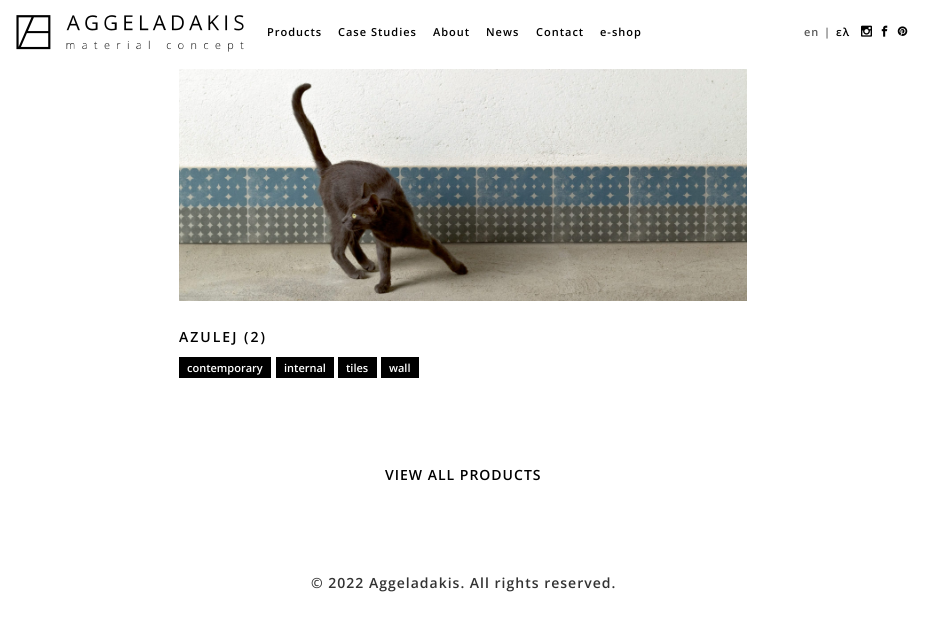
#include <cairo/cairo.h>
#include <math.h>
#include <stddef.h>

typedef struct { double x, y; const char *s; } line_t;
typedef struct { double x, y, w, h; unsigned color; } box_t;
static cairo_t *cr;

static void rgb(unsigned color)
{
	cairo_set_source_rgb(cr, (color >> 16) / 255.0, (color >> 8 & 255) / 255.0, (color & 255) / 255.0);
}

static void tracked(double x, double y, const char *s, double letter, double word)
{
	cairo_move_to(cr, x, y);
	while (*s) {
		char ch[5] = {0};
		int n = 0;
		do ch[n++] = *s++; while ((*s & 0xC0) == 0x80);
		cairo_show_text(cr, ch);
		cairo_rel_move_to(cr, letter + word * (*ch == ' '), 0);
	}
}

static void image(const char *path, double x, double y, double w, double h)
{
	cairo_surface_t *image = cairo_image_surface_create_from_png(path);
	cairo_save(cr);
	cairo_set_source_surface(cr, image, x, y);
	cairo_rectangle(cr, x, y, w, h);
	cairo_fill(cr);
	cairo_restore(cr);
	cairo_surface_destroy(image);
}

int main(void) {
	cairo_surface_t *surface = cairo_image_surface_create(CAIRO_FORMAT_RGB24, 927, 639);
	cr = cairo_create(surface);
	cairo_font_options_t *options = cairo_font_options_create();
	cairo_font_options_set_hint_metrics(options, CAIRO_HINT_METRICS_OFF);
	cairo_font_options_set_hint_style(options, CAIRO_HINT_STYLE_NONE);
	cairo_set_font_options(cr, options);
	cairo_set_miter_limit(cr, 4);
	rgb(0xffffff);
	cairo_paint(cr);
	image("img/1.png", 16, 15, 228, 37);
	image("img/2.png", 861, 25, 11, 12);
	image("img/3.png", 881, 25, 7, 12);
	image("img/4.png", 897, 26, 11, 10);
	image("img/5.png", 179, 69, 568, 232);
	{
		static const box_t items[] = {
			{179, 357, 92, 21, 0x000000},
			{276, 357, 58, 21, 0x000000},
			{338, 357, 39, 21, 0x000000},
			{381, 357, 38, 21, 0x000000},
		};
		for (size_t i = 0; i < sizeof items / sizeof *items; i++) {
			rgb(items[i].color);
			cairo_rectangle(cr, items[i].x, items[i].y, items[i].w, items[i].h);
			cairo_fill(cr);
		}
	}
	cairo_select_font_face(cr, "Open Sans SemiBold", CAIRO_FONT_SLANT_NORMAL, CAIRO_FONT_WEIGHT_NORMAL);
	cairo_set_font_size(cr, 11);
	{
		static const line_t items[] = {
			{267, 36, "Products"},
			{338, 36, "Case Studies"},
			{433, 36, "About"},
			{486, 36, "News"},
			{536, 36, "Contact"},
			{600, 36, "e-shop"},
		};
		for (size_t i = 0; i < sizeof items / sizeof *items; i++) {
			tracked(items[i].x, items[i].y, items[i].s, 1, 0);
		}
	}
	rgb(0x595959);
	tracked(804, 36, "en", 1, 0);
	tracked(824, 36, "|", 1, 0);
	rgb(0x000000);
	tracked(836, 36, "ελ", 1, 0);
	cairo_set_font_size(cr, 14);
	tracked(179, 342, "AZULEJ (2)", 2, 0);
	cairo_set_font_size(cr, 11);
	rgb(0xffffff);
	{
		static const line_t items[] = {
			{187, 372, "contemporary"},
			{284, 372, "internal"},
			{346, 372, "tiles"},
			{389, 372, "wall"},
		};
		for (size_t i = 0; i < sizeof items / sizeof *items; i++) {
			cairo_move_to(cr, items[i].x, items[i].y);
			cairo_show_text(cr, items[i].s);
		}
	}
	cairo_set_font_size(cr, 14);
	rgb(0x000000);
	tracked(385, 480, "VIEW ALL PRODUCTS", 1, 0);
	rgb(0x333333);
	tracked(311, 588, "© 2022 Aggeladakis. All rights reserved.", 1, 0);
	cairo_surface_write_to_png(surface, "page.png");
	cairo_font_options_destroy(options);
	cairo_destroy(cr);
	cairo_surface_destroy(surface);
	return 0;
}
